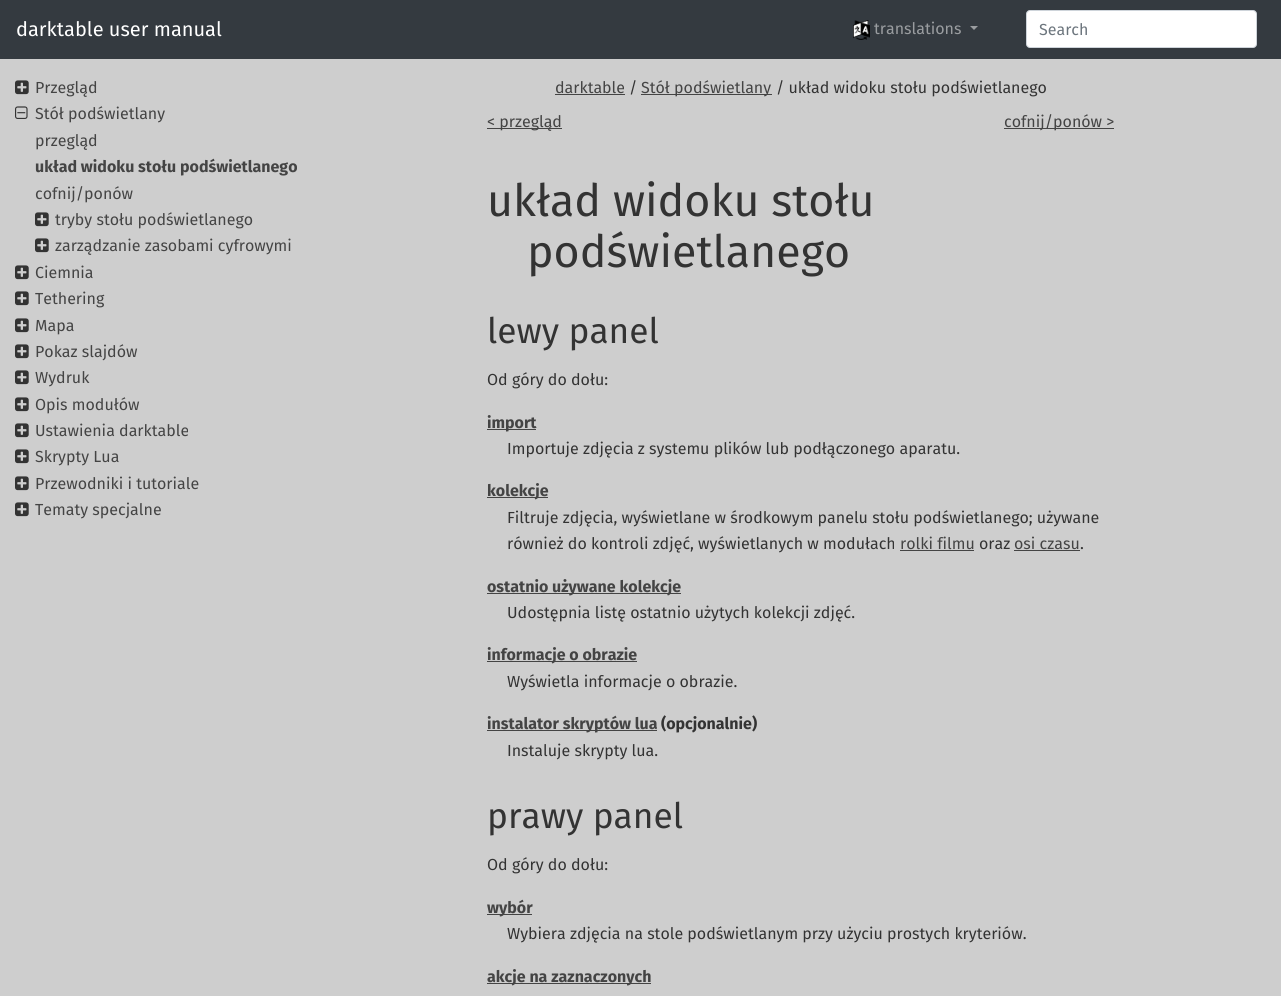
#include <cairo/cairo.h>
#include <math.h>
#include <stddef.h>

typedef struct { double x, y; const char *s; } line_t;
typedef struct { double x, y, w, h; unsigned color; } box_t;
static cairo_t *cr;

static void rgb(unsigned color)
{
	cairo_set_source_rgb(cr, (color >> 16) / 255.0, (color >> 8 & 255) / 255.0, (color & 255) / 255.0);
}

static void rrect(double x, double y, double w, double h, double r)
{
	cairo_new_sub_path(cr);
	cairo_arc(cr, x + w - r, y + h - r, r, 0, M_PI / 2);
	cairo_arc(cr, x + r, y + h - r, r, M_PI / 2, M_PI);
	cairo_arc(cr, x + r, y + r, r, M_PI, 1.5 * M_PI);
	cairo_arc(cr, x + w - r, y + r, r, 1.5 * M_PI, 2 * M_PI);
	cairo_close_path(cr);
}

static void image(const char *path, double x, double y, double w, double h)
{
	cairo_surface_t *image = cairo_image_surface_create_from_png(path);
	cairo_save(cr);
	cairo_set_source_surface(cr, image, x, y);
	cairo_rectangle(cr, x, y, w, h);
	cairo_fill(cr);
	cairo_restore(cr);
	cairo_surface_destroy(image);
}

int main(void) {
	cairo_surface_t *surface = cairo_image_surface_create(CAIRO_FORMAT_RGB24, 1281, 996);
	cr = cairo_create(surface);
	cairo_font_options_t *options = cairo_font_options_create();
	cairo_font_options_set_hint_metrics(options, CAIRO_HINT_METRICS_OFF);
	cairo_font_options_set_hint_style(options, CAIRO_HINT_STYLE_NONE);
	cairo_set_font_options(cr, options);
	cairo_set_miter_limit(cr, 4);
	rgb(0xcecece);
	cairo_paint(cr);
	rgb(0x343a40);
	cairo_rectangle(cr, 0, 0, 1281, 59);
	cairo_fill(cr);
	image("img/1.png", 853, 20, 17, 20);
	rgb(0x9a9da0);
	cairo_new_path(cr);
	cairo_move_to(cr, 970, 26);
	cairo_line_to(cr, 978, 26);
	cairo_line_to(cr, 974, 30);
	cairo_close_path(cr);
	cairo_fill(cr);
	rgb(0xffffff);
	rrect(1026.5, 10.5, 230, 37, 3.5);
	cairo_fill_preserve(cr);
	rgb(0xced4da);
	cairo_set_line_width(cr, 1);
	cairo_stroke(cr);
	image("img/2.png", 15, 80, 14, 15);
	image("img/3.png", 15, 106, 13, 13);
	image("img/2.png", 35, 212, 14, 15);
	image("img/2.png", 35, 238, 14, 15);
	image("img/2.png", 15, 265, 14, 15);
	image("img/2.png", 15, 291, 14, 15);
	image("img/2.png", 15, 318, 14, 15);
	image("img/2.png", 15, 344, 14, 15);
	image("img/2.png", 15, 370, 14, 15);
	image("img/2.png", 15, 397, 14, 15);
	image("img/2.png", 15, 423, 14, 15);
	image("img/2.png", 15, 449, 14, 15);
	image("img/2.png", 15, 476, 14, 15);
	image("img/2.png", 15, 502, 14, 15);
	{
		static const box_t items[] = {
			{555, 94, 70, 1, 0x444444},
			{641, 94, 131, 1, 0x444444},
			{487, 128, 75, 1, 0x444444},
			{1004, 128, 110, 1, 0x444444},
			{487, 429, 49, 1, 0x444444},
			{487, 497, 61, 1, 0x444444},
			{900, 550, 74, 1, 0x444444},
			{1014, 550, 66, 1, 0x444444},
			{487, 593, 194, 1, 0x444444},
			{487, 661, 150, 1, 0x444444},
			{487, 730, 170, 1, 0x444444},
			{487, 914, 45, 1, 0x444444},
			{487, 983, 164, 1, 0x444444},
		};
		for (size_t i = 0; i < sizeof items / sizeof *items; i++) {
			rgb(items[i].color);
			cairo_rectangle(cr, items[i].x, items[i].y, items[i].w, items[i].h);
			cairo_fill(cr);
		}
	}
	cairo_select_font_face(cr, "Fira Sans", CAIRO_FONT_SLANT_NORMAL, CAIRO_FONT_WEIGHT_NORMAL);
	cairo_set_font_size(cr, 20);
	rgb(0xffffff);
	cairo_move_to(cr, 16, 36);
	cairo_show_text(cr, "darktable user manual");
	cairo_set_font_size(cr, 16);
	rgb(0x9a9da0);
	cairo_move_to(cr, 874, 34);
	cairo_show_text(cr, "translations");
	rgb(0x6c757d);
	cairo_move_to(cr, 1039, 35);
	cairo_show_text(cr, "Search");
	rgb(0x444444);
	{
		static const line_t items[] = {
			{35, 93, "Przegląd"},
			{35, 119, "Stół podświetlany"},
			{35, 146, "przegląd"},
		};
		for (size_t i = 0; i < sizeof items / sizeof *items; i++) {
			cairo_move_to(cr, items[i].x, items[i].y);
			cairo_show_text(cr, items[i].s);
		}
	}
	cairo_select_font_face(cr, "Fira Sans", CAIRO_FONT_SLANT_NORMAL, CAIRO_FONT_WEIGHT_BOLD);
	cairo_move_to(cr, 35, 172);
	cairo_show_text(cr, "układ widoku stołu podświetlanego");
	cairo_select_font_face(cr, "Fira Sans", CAIRO_FONT_SLANT_NORMAL, CAIRO_FONT_WEIGHT_NORMAL);
	{
		static const line_t items[] = {
			{35, 199, "cofnij/ponów"},
			{55, 225, "tryby stołu podświetlanego"},
			{55, 251, "zarządzanie zasobami cyfrowymi"},
			{35, 278, "Ciemnia"},
			{35, 304, "Tethering"},
			{35, 331, "Mapa"},
			{35, 357, "Pokaz slajdów"},
			{35, 383, "Wydruk"},
			{35, 410, "Opis modułów"},
			{35, 436, "Ustawienia darktable"},
			{35, 462, "Skrypty Lua"},
			{35, 489, "Przewodniki i tutoriale"},
			{35, 515, "Tematy specjalne"},
			{555, 93, "darktable"},
		};
		for (size_t i = 0; i < sizeof items / sizeof *items; i++) {
			cairo_move_to(cr, items[i].x, items[i].y);
			cairo_show_text(cr, items[i].s);
		}
	}
	rgb(0x333333);
	cairo_move_to(cr, 629, 93);
	cairo_show_text(cr, "/");
	rgb(0x444444);
	cairo_move_to(cr, 641, 93);
	cairo_show_text(cr, "Stół podświetlany");
	rgb(0x333333);
	cairo_move_to(cr, 776, 93);
	cairo_show_text(cr, "/ układ widoku stołu podświetlanego");
	rgb(0x444444);
	cairo_move_to(cr, 487, 127);
	cairo_show_text(cr, "< przegląd");
	cairo_move_to(cr, 1004, 127);
	cairo_show_text(cr, "cofnij/ponów >");
	cairo_set_font_size(cr, 44.75);
	rgb(0x333333);
	cairo_move_to(cr, 487, 216);
	cairo_show_text(cr, "układ widoku stołu");
	cairo_move_to(cr, 527, 267);
	cairo_show_text(cr, "podświetlanego");
	cairo_set_font_size(cr, 35.25);
	cairo_move_to(cr, 487, 343);
	cairo_show_text(cr, "lewy panel");
	cairo_set_font_size(cr, 16);
	cairo_move_to(cr, 487, 385);
	cairo_show_text(cr, "Od góry do dołu:");
	cairo_select_font_face(cr, "Fira Sans", CAIRO_FONT_SLANT_NORMAL, CAIRO_FONT_WEIGHT_BOLD);
	rgb(0x444444);
	cairo_move_to(cr, 487, 428);
	cairo_show_text(cr, "import");
	cairo_select_font_face(cr, "Fira Sans", CAIRO_FONT_SLANT_NORMAL, CAIRO_FONT_WEIGHT_NORMAL);
	rgb(0x333333);
	cairo_move_to(cr, 507, 454);
	cairo_show_text(cr, "Importuje zdjęcia z systemu plików lub podłączonego aparatu.");
	cairo_select_font_face(cr, "Fira Sans", CAIRO_FONT_SLANT_NORMAL, CAIRO_FONT_WEIGHT_BOLD);
	rgb(0x444444);
	cairo_move_to(cr, 487, 496);
	cairo_show_text(cr, "kolekcje");
	cairo_select_font_face(cr, "Fira Sans", CAIRO_FONT_SLANT_NORMAL, CAIRO_FONT_WEIGHT_NORMAL);
	rgb(0x333333);
	cairo_move_to(cr, 507, 523);
	cairo_show_text(cr, "Filtruje zdjęcia, wyświetlane w środkowym panelu stołu podświetlanego; używane");
	cairo_move_to(cr, 507, 549);
	cairo_show_text(cr, "również do kontroli zdjęć, wyświetlanych w modułach");
	rgb(0x444444);
	cairo_move_to(cr, 900, 549);
	cairo_show_text(cr, "rolki filmu");
	rgb(0x333333);
	cairo_move_to(cr, 979, 549);
	cairo_show_text(cr, "oraz");
	rgb(0x444444);
	cairo_move_to(cr, 1014, 549);
	cairo_show_text(cr, "osi czasu");
	rgb(0x333333);
	cairo_move_to(cr, 1080, 549);
	cairo_show_text(cr, ".");
	cairo_select_font_face(cr, "Fira Sans", CAIRO_FONT_SLANT_NORMAL, CAIRO_FONT_WEIGHT_BOLD);
	rgb(0x444444);
	cairo_move_to(cr, 487, 592);
	cairo_show_text(cr, "ostatnio używane kolekcje");
	cairo_select_font_face(cr, "Fira Sans", CAIRO_FONT_SLANT_NORMAL, CAIRO_FONT_WEIGHT_NORMAL);
	rgb(0x333333);
	cairo_move_to(cr, 507, 618);
	cairo_show_text(cr, "Udostępnia listę ostatnio użytych kolekcji zdjęć.");
	cairo_select_font_face(cr, "Fira Sans", CAIRO_FONT_SLANT_NORMAL, CAIRO_FONT_WEIGHT_BOLD);
	rgb(0x444444);
	cairo_move_to(cr, 487, 660);
	cairo_show_text(cr, "informacje o obrazie");
	cairo_select_font_face(cr, "Fira Sans", CAIRO_FONT_SLANT_NORMAL, CAIRO_FONT_WEIGHT_NORMAL);
	rgb(0x333333);
	cairo_move_to(cr, 507, 687);
	cairo_show_text(cr, "Wyświetla informacje o obrazie.");
	cairo_select_font_face(cr, "Fira Sans", CAIRO_FONT_SLANT_NORMAL, CAIRO_FONT_WEIGHT_BOLD);
	rgb(0x444444);
	cairo_move_to(cr, 487, 729);
	cairo_show_text(cr, "instalator skryptów lua");
	rgb(0x333333);
	cairo_move_to(cr, 661, 729);
	cairo_show_text(cr, "(opcjonalnie)");
	cairo_select_font_face(cr, "Fira Sans", CAIRO_FONT_SLANT_NORMAL, CAIRO_FONT_WEIGHT_NORMAL);
	cairo_move_to(cr, 507, 756);
	cairo_show_text(cr, "Instaluje skrypty lua.");
	cairo_set_font_size(cr, 35.25);
	cairo_move_to(cr, 487, 828);
	cairo_show_text(cr, "prawy panel");
	cairo_set_font_size(cr, 16);
	cairo_move_to(cr, 487, 870);
	cairo_show_text(cr, "Od góry do dołu:");
	cairo_select_font_face(cr, "Fira Sans", CAIRO_FONT_SLANT_NORMAL, CAIRO_FONT_WEIGHT_BOLD);
	rgb(0x444444);
	cairo_move_to(cr, 487, 913);
	cairo_show_text(cr, "wybór");
	cairo_select_font_face(cr, "Fira Sans", CAIRO_FONT_SLANT_NORMAL, CAIRO_FONT_WEIGHT_NORMAL);
	rgb(0x333333);
	cairo_move_to(cr, 507, 939);
	cairo_show_text(cr, "Wybiera zdjęcia na stole podświetlanym przy użyciu prostych kryteriów.");
	cairo_select_font_face(cr, "Fira Sans", CAIRO_FONT_SLANT_NORMAL, CAIRO_FONT_WEIGHT_BOLD);
	rgb(0x444444);
	cairo_move_to(cr, 487, 982);
	cairo_show_text(cr, "akcje na zaznaczonych");
	cairo_surface_write_to_png(surface, "page.png");
	cairo_font_options_destroy(options);
	cairo_destroy(cr);
	cairo_surface_destroy(surface);
	return 0;
}
